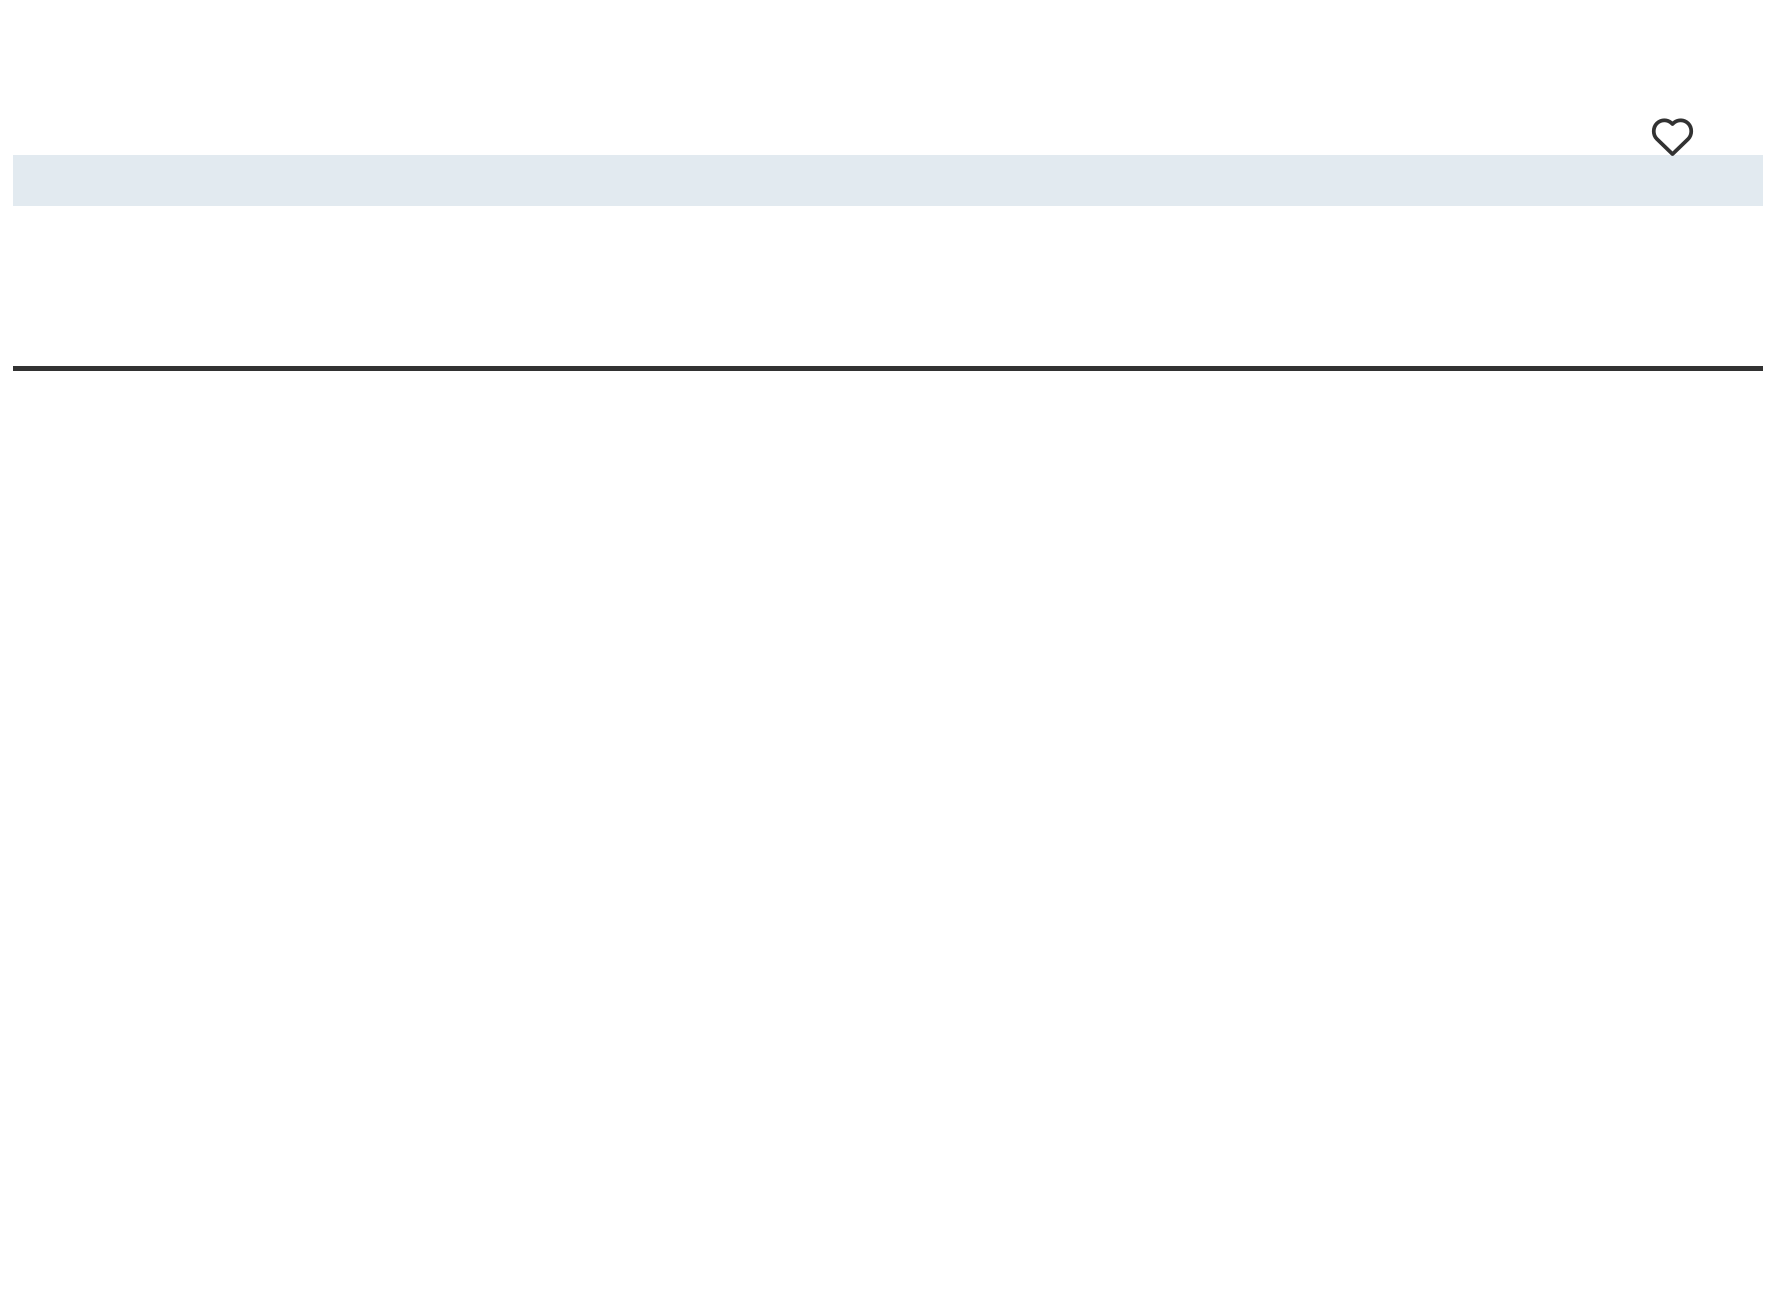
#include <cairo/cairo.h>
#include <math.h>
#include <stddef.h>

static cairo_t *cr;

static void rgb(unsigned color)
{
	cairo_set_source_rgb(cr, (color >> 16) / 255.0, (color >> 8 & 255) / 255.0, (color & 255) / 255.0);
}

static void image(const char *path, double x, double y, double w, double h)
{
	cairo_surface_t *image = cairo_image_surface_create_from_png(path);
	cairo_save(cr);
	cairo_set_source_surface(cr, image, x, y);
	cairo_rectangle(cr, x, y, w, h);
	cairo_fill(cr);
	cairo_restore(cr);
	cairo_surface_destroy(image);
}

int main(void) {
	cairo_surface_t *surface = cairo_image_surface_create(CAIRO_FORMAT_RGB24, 1775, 1297);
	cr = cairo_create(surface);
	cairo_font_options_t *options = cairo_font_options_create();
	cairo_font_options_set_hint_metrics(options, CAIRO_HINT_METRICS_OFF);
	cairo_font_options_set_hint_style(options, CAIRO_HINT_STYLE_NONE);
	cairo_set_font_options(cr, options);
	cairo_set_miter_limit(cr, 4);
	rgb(0xffffff);
	cairo_paint(cr);
	rgb(0xe2eaf0);
	cairo_rectangle(cr, 13, 155, 1750, 51);
	cairo_fill(cr);
	image("img/1.png", 1651, 118, 43, 38);
	rgb(0x323232);
	cairo_rectangle(cr, 13, 366, 1750, 5);
	cairo_fill(cr);
	cairo_surface_write_to_png(surface, "page.png");
	cairo_font_options_destroy(options);
	cairo_destroy(cr);
	cairo_surface_destroy(surface);
	return 0;
}
